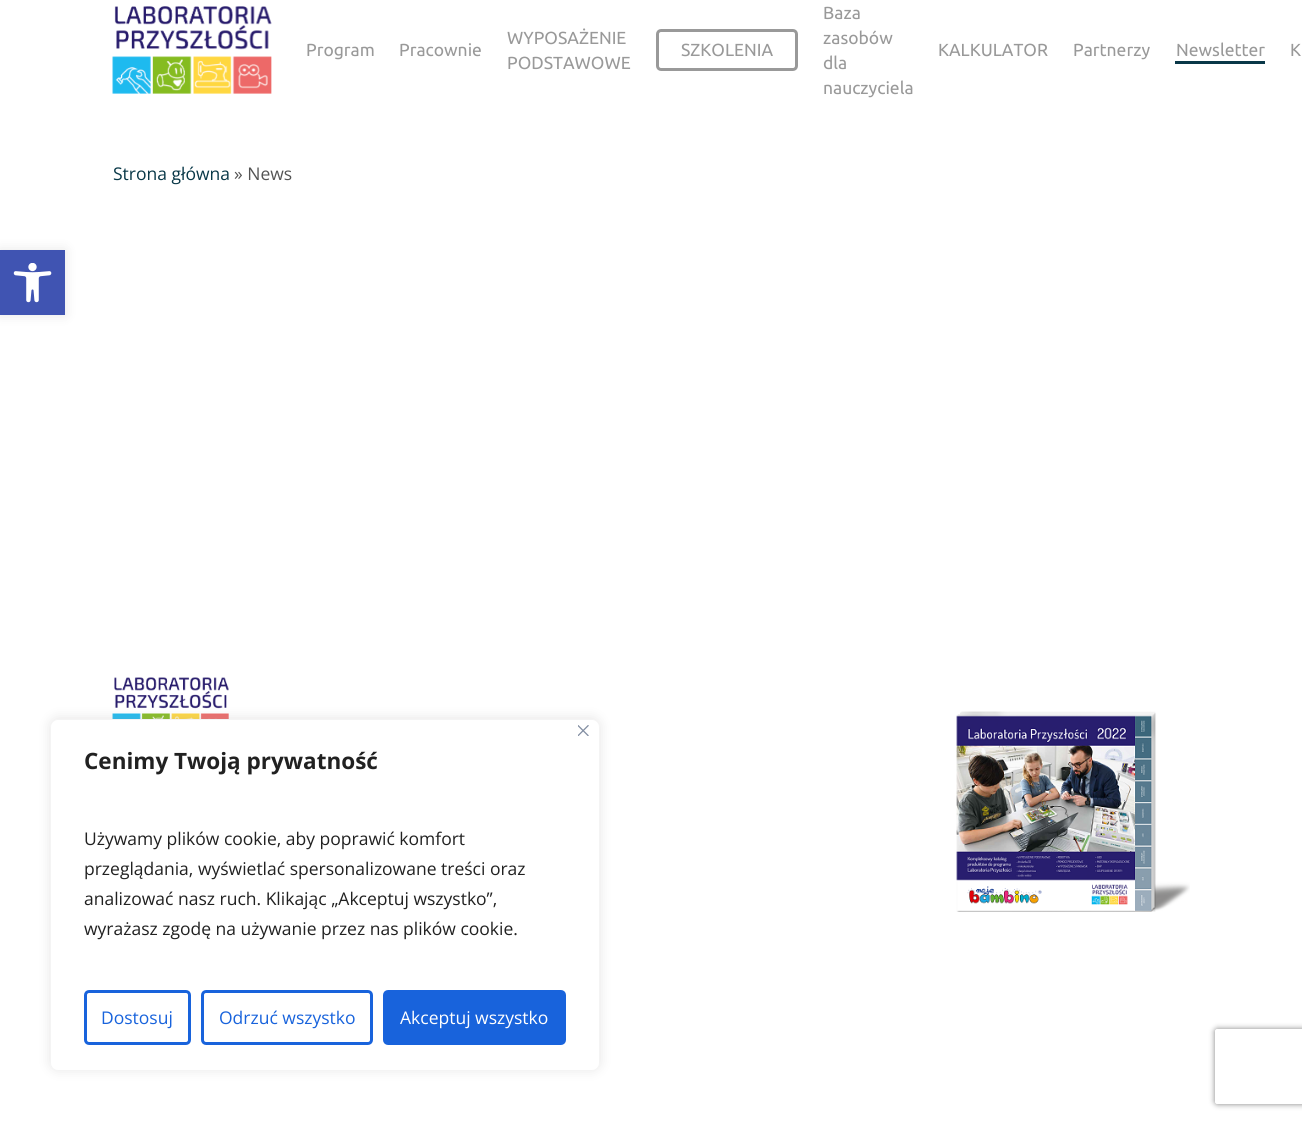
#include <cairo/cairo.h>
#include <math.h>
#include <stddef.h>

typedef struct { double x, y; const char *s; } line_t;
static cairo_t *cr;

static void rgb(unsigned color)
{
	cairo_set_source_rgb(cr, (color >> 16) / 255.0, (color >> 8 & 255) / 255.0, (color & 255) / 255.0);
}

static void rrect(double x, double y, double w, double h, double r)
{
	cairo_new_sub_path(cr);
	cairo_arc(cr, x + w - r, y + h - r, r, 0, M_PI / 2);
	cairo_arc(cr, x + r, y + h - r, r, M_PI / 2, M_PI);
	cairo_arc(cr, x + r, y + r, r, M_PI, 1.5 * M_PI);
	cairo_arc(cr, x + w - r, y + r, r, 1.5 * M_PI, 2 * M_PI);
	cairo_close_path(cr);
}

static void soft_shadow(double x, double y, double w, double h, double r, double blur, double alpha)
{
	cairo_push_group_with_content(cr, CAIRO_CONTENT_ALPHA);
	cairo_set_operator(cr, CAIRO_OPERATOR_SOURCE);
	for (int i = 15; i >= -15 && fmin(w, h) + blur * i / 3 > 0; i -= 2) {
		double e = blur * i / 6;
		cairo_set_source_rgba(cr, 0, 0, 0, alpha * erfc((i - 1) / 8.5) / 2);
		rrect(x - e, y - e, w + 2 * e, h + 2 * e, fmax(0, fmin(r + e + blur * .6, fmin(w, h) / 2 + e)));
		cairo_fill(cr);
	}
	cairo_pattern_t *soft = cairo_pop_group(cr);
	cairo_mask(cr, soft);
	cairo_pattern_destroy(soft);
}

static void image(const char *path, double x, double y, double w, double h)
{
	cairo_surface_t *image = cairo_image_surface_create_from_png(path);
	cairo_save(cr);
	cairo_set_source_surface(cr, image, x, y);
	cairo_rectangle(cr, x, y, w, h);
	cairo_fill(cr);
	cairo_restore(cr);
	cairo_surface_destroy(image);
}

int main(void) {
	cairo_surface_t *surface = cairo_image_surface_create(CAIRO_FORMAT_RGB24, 1302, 1121);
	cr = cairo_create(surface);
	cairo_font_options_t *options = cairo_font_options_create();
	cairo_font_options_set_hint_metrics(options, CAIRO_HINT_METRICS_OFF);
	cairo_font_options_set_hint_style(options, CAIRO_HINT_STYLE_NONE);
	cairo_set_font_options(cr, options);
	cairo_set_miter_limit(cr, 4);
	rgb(0xffffff);
	cairo_paint(cr);
	image("img/1.png", 112, 6, 160, 88);
	rrect(657.5, 30.5, 139, 39, 3.5);
	rgb(0x999999);
	cairo_set_line_width(cr, 3);
	cairo_stroke(cr);
	rgb(0x093848);
	cairo_rectangle(cr, 1175, 61, 90, 3);
	cairo_fill(cr);
	image("img/2.png", 112, 677, 117, 42);
	image("img/3.png", 956, 711, 234, 201);
	rgb(0x000000);
	soft_shadow(0, 250, 65, 65, 0, 6, 0.1);
	rgb(0x4054b2);
	cairo_rectangle(cr, 0, 250, 65, 65);
	cairo_fill(cr);
	image("img/4.png", 13, 263, 39, 40);
	rgb(0xacabab);
	soft_shadow(50, 718, 550, 352, 8, 6, 0.3);
	rgb(0xffffff);
	rrect(50.5, 719.5, 549, 351, 7.5);
	cairo_fill_preserve(cr);
	rgb(0xf4f4f4);
	cairo_set_line_width(cr, 1);
	cairo_stroke(cr);
	image("img/5.png", 578, 725, 11, 11);
	rrect(85.5, 991.5, 104, 52, 3.5);
	rgb(0x1863dc);
	cairo_set_line_width(cr, 3);
	cairo_stroke(cr);
	rrect(202.5, 991.5, 169, 52, 3.5);
	cairo_stroke(cr);
	rrect(384.5, 991.5, 180, 52, 3.5);
	cairo_fill_preserve(cr);
	cairo_stroke(cr);
	cairo_save(cr);
	cairo_set_fill_rule(cr, CAIRO_FILL_RULE_EVEN_ODD);
	cairo_new_path(cr);
	cairo_move_to(cr, 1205, 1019);
	cairo_line_to(cr, 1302, 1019);
	cairo_line_to(cr, 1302, 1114);
	cairo_line_to(cr, 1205, 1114);
	cairo_close_path(cr);
	cairo_move_to(cr, 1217.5, 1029);
	cairo_line_to(cr, 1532.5, 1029);
	cairo_curve_to(cr, 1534, 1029, 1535, 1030, 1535, 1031.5);
	cairo_line_to(cr, 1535, 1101.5);
	cairo_curve_to(cr, 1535, 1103, 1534, 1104, 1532.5, 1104);
	cairo_line_to(cr, 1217.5, 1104);
	cairo_curve_to(cr, 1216, 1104, 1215, 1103, 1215, 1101.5);
	cairo_line_to(cr, 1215, 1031.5);
	cairo_curve_to(cr, 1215, 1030, 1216, 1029, 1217.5, 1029);
	cairo_close_path(cr);
	cairo_clip(cr);
	rgb(0x808080);
	soft_shadow(1215, 1029, 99, 75, 2.5, 3, 1);
	cairo_restore(cr);
	cairo_select_font_face(cr, "Ubuntu", CAIRO_FONT_SLANT_NORMAL, CAIRO_FONT_WEIGHT_NORMAL);
	cairo_set_font_size(cr, 17.5);
	rgb(0x999999);
	{
		static const line_t items[] = {
			{306, 56, "Program"},
			{399, 56, "Pracownie"},
			{507, 44, "WYPOSAŻENIE"},
			{507, 69, "PODSTAWOWE"},
			{681, 56, "SZKOLENIA"},
			{823, 19, "Baza"},
			{823, 44, "zasobów"},
			{823, 69, "dla"},
			{823, 94, "nauczyciela"},
			{938, 56, "KALKULATOR"},
			{1073, 56, "Partnerzy"},
			{1176, 56, "Newsletter"},
			{1290, 56, "K"},
		};
		for (size_t i = 0; i < sizeof items / sizeof *items; i++) {
			cairo_move_to(cr, items[i].x, items[i].y);
			cairo_show_text(cr, items[i].s);
		}
	}
	cairo_select_font_face(cr, "Open Sans", CAIRO_FONT_SLANT_NORMAL, CAIRO_FONT_WEIGHT_NORMAL);
	rgb(0x093848);
	cairo_move_to(cr, 113, 180);
	cairo_show_text(cr, "Strona główna");
	rgb(0x545454);
	cairo_move_to(cr, 234, 180);
	cairo_show_text(cr, "» News");
	cairo_select_font_face(cr, "Open Sans", CAIRO_FONT_SLANT_NORMAL, CAIRO_FONT_WEIGHT_BOLD);
	cairo_set_font_size(cr, 22.5);
	rgb(0x212121);
	cairo_move_to(cr, 84, 769);
	cairo_show_text(cr, "Cenimy Twoją prywatność");
	cairo_select_font_face(cr, "Open Sans", CAIRO_FONT_SLANT_NORMAL, CAIRO_FONT_WEIGHT_NORMAL);
	cairo_set_font_size(cr, 17.5);
	{
		static const line_t items[] = {
			{84, 845, "Używamy plików cookie, aby poprawić komfort"},
			{84, 875, "przeglądania, wyświetlać spersonalizowane treści oraz"},
			{84, 905, "analizować nasz ruch. Klikając „Akceptuj wszystko”,"},
			{84, 935, "wyrażasz zgodę na używanie przez nas plików cookie."},
		};
		for (size_t i = 0; i < sizeof items / sizeof *items; i++) {
			cairo_move_to(cr, items[i].x, items[i].y);
			cairo_show_text(cr, items[i].s);
		}
	}
	rgb(0x1863dc);
	cairo_move_to(cr, 101, 1024);
	cairo_show_text(cr, "Dostosuj");
	cairo_move_to(cr, 219, 1024);
	cairo_show_text(cr, "Odrzuć wszystko");
	rgb(0xffffff);
	cairo_move_to(cr, 400, 1024);
	cairo_show_text(cr, "Akceptuj wszystko");
	cairo_surface_write_to_png(surface, "page.png");
	cairo_font_options_destroy(options);
	cairo_destroy(cr);
	cairo_surface_destroy(surface);
	return 0;
}
